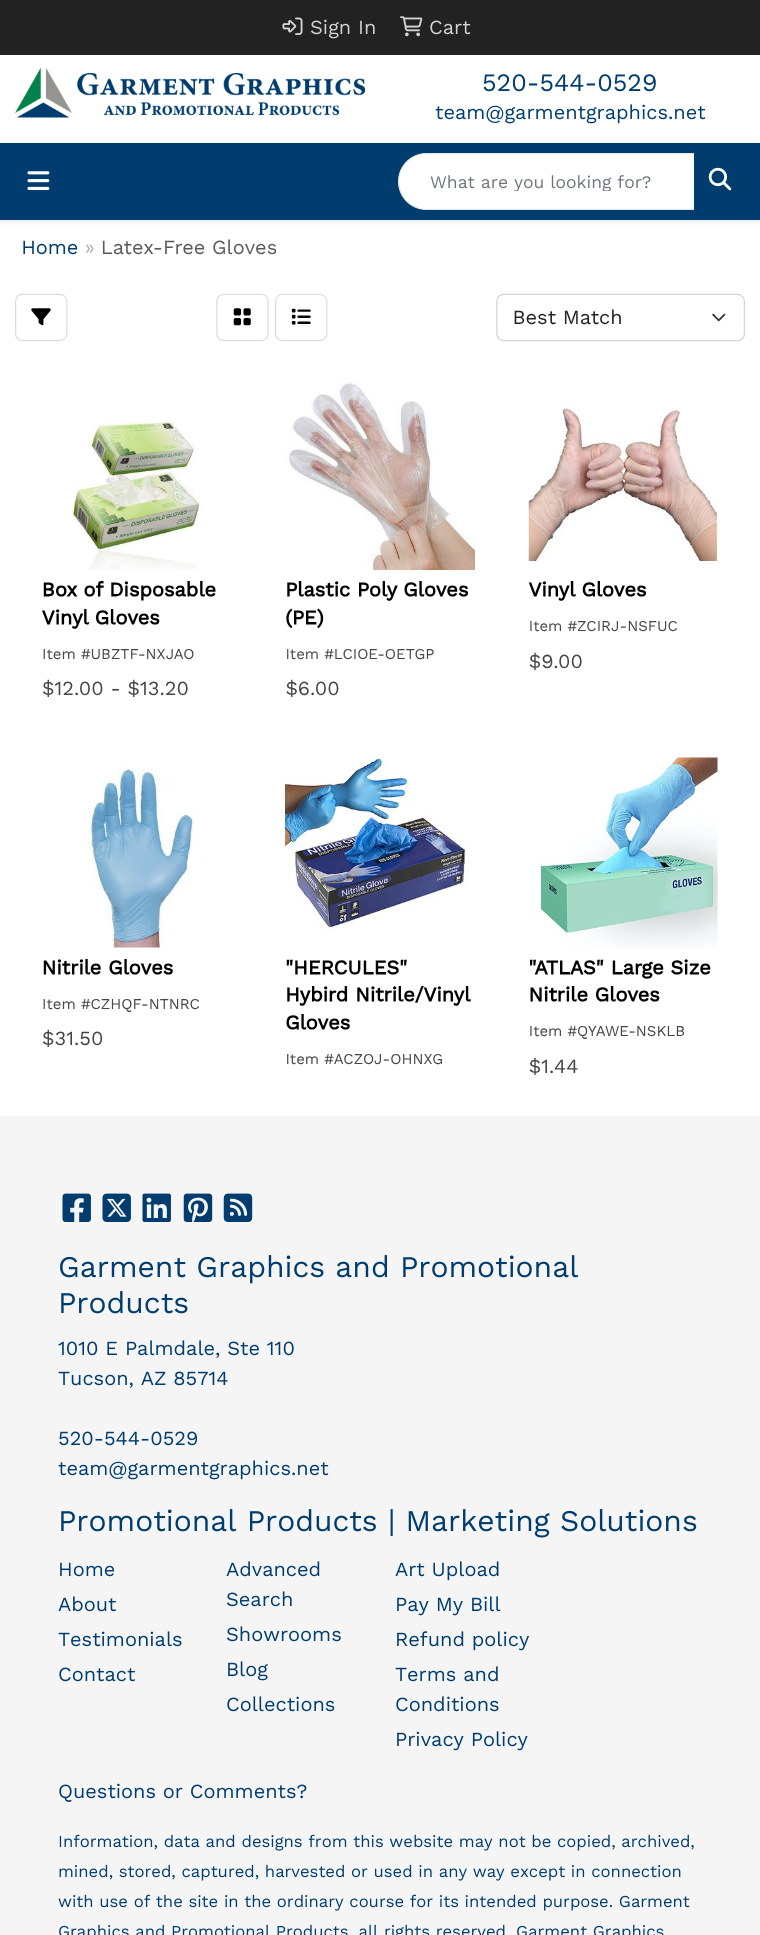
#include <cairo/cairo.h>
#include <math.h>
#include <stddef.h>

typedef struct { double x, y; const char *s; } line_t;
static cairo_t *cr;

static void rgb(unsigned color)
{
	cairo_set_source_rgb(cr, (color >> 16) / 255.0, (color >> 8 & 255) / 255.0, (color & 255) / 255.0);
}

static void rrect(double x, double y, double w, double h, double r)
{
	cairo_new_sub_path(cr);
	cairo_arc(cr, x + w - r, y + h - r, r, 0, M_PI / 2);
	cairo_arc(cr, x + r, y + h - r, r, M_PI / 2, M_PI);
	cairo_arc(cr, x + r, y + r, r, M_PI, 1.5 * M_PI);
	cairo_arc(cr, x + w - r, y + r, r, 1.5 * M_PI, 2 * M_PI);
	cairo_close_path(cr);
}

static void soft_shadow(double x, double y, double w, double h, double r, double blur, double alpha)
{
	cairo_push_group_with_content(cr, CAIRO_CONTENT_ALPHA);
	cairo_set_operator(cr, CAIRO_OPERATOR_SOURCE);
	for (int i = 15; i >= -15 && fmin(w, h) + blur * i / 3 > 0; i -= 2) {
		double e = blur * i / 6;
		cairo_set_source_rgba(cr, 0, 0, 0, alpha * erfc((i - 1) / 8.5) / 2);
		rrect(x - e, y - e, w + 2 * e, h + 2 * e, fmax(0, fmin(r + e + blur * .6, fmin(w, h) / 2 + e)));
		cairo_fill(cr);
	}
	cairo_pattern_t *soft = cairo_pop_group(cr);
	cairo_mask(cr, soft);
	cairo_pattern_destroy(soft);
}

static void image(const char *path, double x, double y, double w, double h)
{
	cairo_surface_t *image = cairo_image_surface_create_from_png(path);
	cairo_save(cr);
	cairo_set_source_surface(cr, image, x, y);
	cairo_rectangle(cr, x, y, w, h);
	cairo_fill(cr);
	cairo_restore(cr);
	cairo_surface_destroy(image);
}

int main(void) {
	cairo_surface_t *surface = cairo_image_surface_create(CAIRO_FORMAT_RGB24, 760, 1935);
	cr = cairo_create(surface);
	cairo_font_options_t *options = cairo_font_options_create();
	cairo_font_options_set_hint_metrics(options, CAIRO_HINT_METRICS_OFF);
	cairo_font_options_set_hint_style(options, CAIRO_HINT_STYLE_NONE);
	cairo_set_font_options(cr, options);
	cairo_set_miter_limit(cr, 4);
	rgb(0xffffff);
	cairo_paint(cr);
	rgb(0x222222);
	cairo_rectangle(cr, 0, 0, 760, 55);
	cairo_fill(cr);
	image("img/1.png", 282, 17, 21, 18);
	image("img/2.png", 400, 16, 23, 21);
	image("img/3.png", 15, 67, 350, 51);
	rgb(0x000000);
	soft_shadow(0, 145, 760, 78, 0, 2.5, 0.07);
	rgb(0x003d6e);
	cairo_rectangle(cr, 0, 143, 760, 77);
	cairo_fill(cr);
	image("img/4.png", 27, 171, 23, 19);
	rgb(0xffffff);
	cairo_new_path(cr);
	cairo_move_to(cr, 426.5, 153.5);
	cairo_line_to(cr, 694.5, 153.5);
	cairo_line_to(cr, 694.5, 209.5);
	cairo_line_to(cr, 426.5, 209.5);
	cairo_curve_to(cr, 411, 209.5, 398.5, 197, 398.5, 181.5);
	cairo_curve_to(cr, 398.5, 166, 411, 153.5, 426.5, 153.5);
	cairo_close_path(cr);
	cairo_fill_preserve(cr);
	rgb(0xe4e4e4);
	cairo_set_line_width(cr, 1);
	cairo_stroke(cr);
	rgb(0x003d6e);
	cairo_new_path(cr);
	cairo_move_to(cr, 694, 154);
	cairo_line_to(cr, 718.5, 154);
	cairo_curve_to(cr, 733.5, 154, 746, 166.5, 746, 181.5);
	cairo_curve_to(cr, 746, 196.5, 733.5, 209, 718.5, 209);
	cairo_line_to(cr, 694, 209);
	cairo_close_path(cr);
	cairo_fill(cr);
	cairo_set_fill_rule(cr, CAIRO_FILL_RULE_EVEN_ODD);
	cairo_new_path(cr);
	cairo_move_to(cr, 694, 152);
	cairo_line_to(cr, 719, 152);
	cairo_curve_to(cr, 735, 152, 748, 165, 748, 181);
	cairo_curve_to(cr, 748, 197, 735, 210, 719, 210);
	cairo_line_to(cr, 694, 210);
	cairo_close_path(cr);
	cairo_move_to(cr, 694, 154);
	cairo_line_to(cr, 719, 154);
	cairo_curve_to(cr, 734, 154, 746, 166, 746, 181);
	cairo_curve_to(cr, 746, 196, 734, 209, 719, 209);
	cairo_line_to(cr, 694, 209);
	cairo_close_path(cr);
	cairo_fill(cr);
	image("img/5.png", 708, 167, 24, 24);
	image("img/6.png", 15, 239, 730, 836);
	rgb(0xf5f5f5);
	cairo_rectangle(cr, 0, 1116, 760, 819);
	cairo_fill(cr);
	image("img/7.png", 62, 1193, 29, 29);
	image("img/8.png", 102, 1193, 29, 29);
	image("img/9.png", 142, 1193, 29, 29);
	image("img/10.png", 183, 1193, 30, 29);
	image("img/11.png", 223, 1193, 30, 29);
	cairo_select_font_face(cr, "Work Sans", CAIRO_FONT_SLANT_NORMAL, CAIRO_FONT_WEIGHT_NORMAL);
	cairo_set_font_size(cr, 20);
	rgb(0xd3d3d3);
	cairo_move_to(cr, 310, 34);
	cairo_show_text(cr, "Sign In");
	cairo_move_to(cr, 429, 34);
	cairo_show_text(cr, "Cart");
	cairo_set_font_size(cr, 25);
	rgb(0x003d6e);
	cairo_move_to(cr, 482, 91);
	cairo_show_text(cr, "520-544-0529");
	cairo_set_font_size(cr, 20);
	cairo_move_to(cr, 435, 119);
	cairo_show_text(cr, "team@garmentgraphics.net");
	cairo_save(cr);
	cairo_set_fill_rule(cr, CAIRO_FILL_RULE_WINDING);
	cairo_rectangle(cr, 430, 171, 249, 20);
	cairo_clip(cr);
	cairo_set_font_size(cr, 17.5);
	rgb(0x6c757d);
	cairo_move_to(cr, 430, 188);
	cairo_show_text(cr, "What are you looking for?");
	cairo_restore(cr);
	cairo_set_font_size(cr, 30);
	cairo_move_to(cr, 58, 1277);
	cairo_show_text(cr, "Garment Graphics and Promotional");
	cairo_move_to(cr, 58, 1313);
	cairo_show_text(cr, "Products");
	cairo_set_font_size(cr, 20);
	{
		static const line_t items[] = {
			{58, 1355, "1010 E Palmdale, Ste 110"},
			{58, 1385, "Tucson, AZ 85714"},
			{58, 1445, "520-544-0529"},
			{58, 1475, "team@garmentgraphics.net"},
		};
		for (size_t i = 0; i < sizeof items / sizeof *items; i++) {
			cairo_move_to(cr, items[i].x, items[i].y);
			cairo_show_text(cr, items[i].s);
		}
	}
	cairo_set_font_size(cr, 30);
	cairo_move_to(cr, 58, 1531);
	cairo_show_text(cr, "Promotional Products | Marketing Solutions");
	cairo_set_font_size(cr, 20);
	{
		static const line_t items[] = {
			{58, 1576, "Home"},
			{58, 1611, "About"},
			{58, 1646, "Testimonials"},
			{58, 1681, "Contact"},
			{226, 1576, "Advanced"},
			{226, 1606, "Search"},
			{226, 1641, "Showrooms"},
			{226, 1676, "Blog"},
			{226, 1711, "Collections"},
			{395, 1576, "Art Upload"},
			{395, 1611, "Pay My Bill"},
			{395, 1646, "Refund policy"},
			{395, 1681, "Terms and"},
			{395, 1711, "Conditions"},
			{395, 1746, "Privacy Policy"},
			{58, 1798, "Questions or Comments?"},
		};
		for (size_t i = 0; i < sizeof items / sizeof *items; i++) {
			cairo_move_to(cr, items[i].x, items[i].y);
			cairo_show_text(cr, items[i].s);
		}
	}
	cairo_set_font_size(cr, 16.65);
	{
		static const line_t items[] = {
			{58, 1847, "Information, data and designs from this website may not be copied, archived,"},
			{58, 1877, "mined, stored, captured, harvested or used in any way except in connection"},
			{58, 1907, "with use of the site in the ordinary course for its intended purpose. Garment"},
			{58, 1937, "Graphics and Promotional Products, all rights reserved. Garment Graphics"},
		};
		for (size_t i = 0; i < sizeof items / sizeof *items; i++) {
			cairo_move_to(cr, items[i].x, items[i].y);
			cairo_show_text(cr, items[i].s);
		}
	}
	cairo_surface_write_to_png(surface, "page.png");
	cairo_font_options_destroy(options);
	cairo_destroy(cr);
	cairo_surface_destroy(surface);
	return 0;
}
